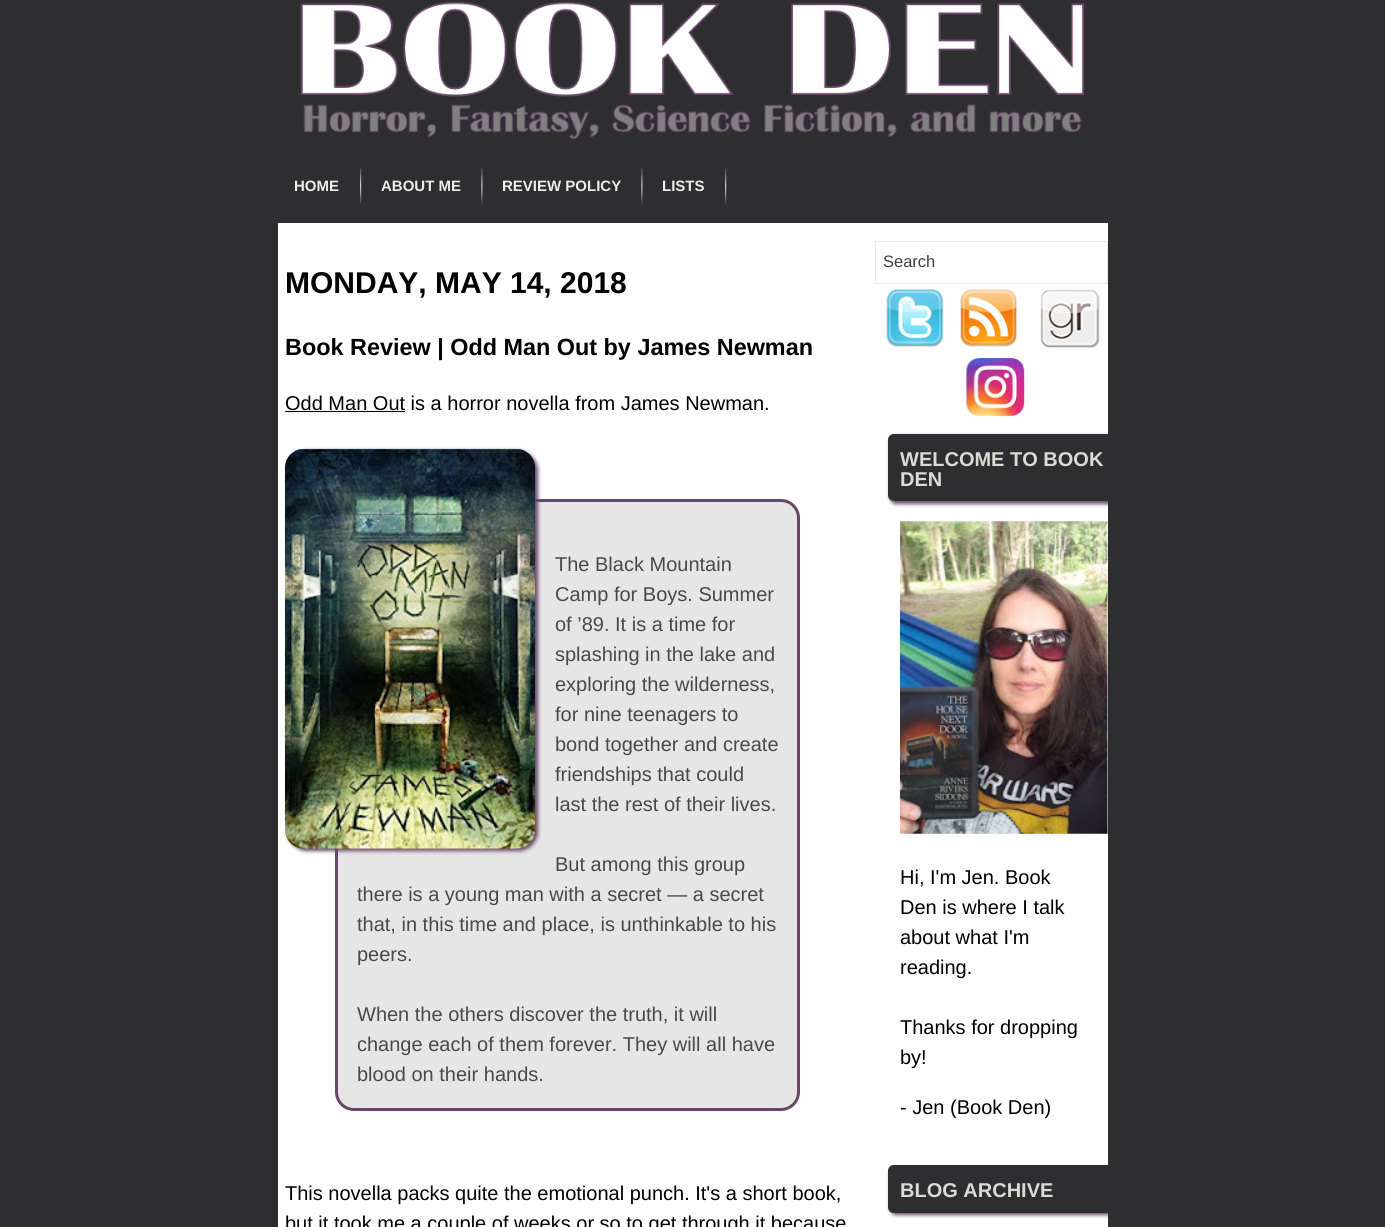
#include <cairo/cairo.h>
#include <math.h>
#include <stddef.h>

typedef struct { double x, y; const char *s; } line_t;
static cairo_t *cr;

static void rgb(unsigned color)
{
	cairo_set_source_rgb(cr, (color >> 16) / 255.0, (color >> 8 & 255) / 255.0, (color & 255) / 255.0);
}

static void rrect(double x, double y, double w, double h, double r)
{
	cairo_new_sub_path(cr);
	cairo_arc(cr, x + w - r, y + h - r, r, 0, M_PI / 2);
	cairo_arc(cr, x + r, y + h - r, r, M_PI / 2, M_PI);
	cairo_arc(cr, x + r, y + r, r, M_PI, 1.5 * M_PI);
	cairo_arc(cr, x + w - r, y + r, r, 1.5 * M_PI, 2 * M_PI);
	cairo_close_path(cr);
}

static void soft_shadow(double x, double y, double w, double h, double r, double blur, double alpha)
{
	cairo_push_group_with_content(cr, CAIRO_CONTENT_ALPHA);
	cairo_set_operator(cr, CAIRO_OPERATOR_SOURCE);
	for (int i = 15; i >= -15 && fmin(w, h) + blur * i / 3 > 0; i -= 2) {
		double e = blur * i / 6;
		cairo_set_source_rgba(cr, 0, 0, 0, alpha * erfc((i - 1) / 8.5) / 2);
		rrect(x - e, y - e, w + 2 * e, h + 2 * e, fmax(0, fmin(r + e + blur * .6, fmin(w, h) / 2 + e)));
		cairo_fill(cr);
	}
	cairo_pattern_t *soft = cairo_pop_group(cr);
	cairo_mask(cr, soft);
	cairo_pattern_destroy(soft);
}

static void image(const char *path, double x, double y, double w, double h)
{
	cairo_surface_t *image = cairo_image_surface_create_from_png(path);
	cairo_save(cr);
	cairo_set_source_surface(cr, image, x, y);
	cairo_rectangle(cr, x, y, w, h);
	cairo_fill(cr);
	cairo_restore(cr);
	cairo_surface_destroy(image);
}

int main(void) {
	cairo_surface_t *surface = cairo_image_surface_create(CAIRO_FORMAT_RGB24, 1385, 1227);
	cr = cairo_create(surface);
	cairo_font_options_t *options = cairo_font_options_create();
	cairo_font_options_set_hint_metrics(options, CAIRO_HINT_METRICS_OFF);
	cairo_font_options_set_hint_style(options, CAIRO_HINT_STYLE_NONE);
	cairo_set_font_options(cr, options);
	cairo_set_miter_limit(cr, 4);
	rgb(0x2e2e30);
	cairo_paint(cr);
	image("img/1.png", 300, 1, 785, 139);
	image("img/2.png", 360, 168, 2, 36);
	image("img/3.png", 481, 168, 2, 36);
	image("img/3.png", 641, 168, 2, 36);
	image("img/2.png", 725, 168, 2, 36);
	rgb(0xffffff);
	cairo_rectangle(cr, 278, 223, 830, 1004);
	cairo_fill(cr);
	rgb(0x000000);
	cairo_rectangle(cr, 285, 411, 120, 1);
	cairo_fill(cr);
	rgb(0xe6e6e6);
	rrect(336.5, 500.5, 462, 609, 17.5);
	cairo_fill_preserve(cr);
	rgb(0x694769);
	cairo_set_line_width(cr, 3);
	cairo_stroke(cr);
	rgb(0x694769);
	soft_shadow(288, 451, 250, 400, 19, 2, 1);
	image("img/4.png", 285, 448, 250, 401);
	cairo_rectangle(cr, 875.5, 241.5, 232, 42);
	rgb(0xecebeb);
	cairo_set_line_width(cr, 1);
	cairo_stroke(cr);
	image("img/5.png", 886, 289, 58, 59);
	image("img/6.png", 960, 289, 57, 58);
	image("img/7.png", 1040, 289, 60, 59);
	image("img/8.png", 966, 358, 59, 58);
	cairo_save(cr);
	cairo_rectangle(cr, 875, 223, 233, 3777);
	cairo_clip(cr);
	rgb(0x694769);
	soft_shadow(890, 436, 233, 68, 6, 2, 1);
	cairo_restore(cr);
	rgb(0x2e2e30);
	cairo_new_path(cr);
	cairo_move_to(cr, 894, 434);
	cairo_line_to(cr, 1108, 434);
	cairo_line_to(cr, 1108, 501);
	cairo_line_to(cr, 894, 501);
	cairo_curve_to(cr, 890.5, 501, 888, 498.5, 888, 495);
	cairo_line_to(cr, 888, 440);
	cairo_curve_to(cr, 888, 436.5, 890.5, 434, 894, 434);
	cairo_close_path(cr);
	cairo_fill(cr);
	image("img/9.png", 900, 521, 208, 313);
	cairo_save(cr);
	cairo_rectangle(cr, 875, 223, 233, 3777);
	cairo_clip(cr);
	rgb(0x694769);
	soft_shadow(890, 1168, 233, 47, 6, 2, 1);
	cairo_restore(cr);
	cairo_new_path(cr);
	cairo_move_to(cr, 894, 1165);
	cairo_line_to(cr, 1108, 1165);
	cairo_line_to(cr, 1108, 1213);
	cairo_line_to(cr, 894, 1213);
	cairo_curve_to(cr, 890.5, 1213, 888, 1210.5, 888, 1207);
	cairo_line_to(cr, 888, 1171);
	cairo_curve_to(cr, 888, 1167.5, 890.5, 1165, 894, 1165);
	cairo_close_path(cr);
	cairo_fill(cr);
	cairo_select_font_face(cr, "Liberation Sans", CAIRO_FONT_SLANT_NORMAL, CAIRO_FONT_WEIGHT_BOLD);
	cairo_set_font_size(cr, 15);
	rgb(0xeeebeb);
	{
		static const line_t items[] = {
			{294, 191, "HOME"},
			{381, 191, "ABOUT ME"},
			{502, 191, "REVIEW POLICY"},
			{662, 191, "LISTS"},
		};
		for (size_t i = 0; i < sizeof items / sizeof *items; i++) {
			cairo_move_to(cr, items[i].x, items[i].y);
			cairo_show_text(cr, items[i].s);
		}
	}
	cairo_set_font_size(cr, 30);
	rgb(0x000000);
	cairo_move_to(cr, 285, 293);
	cairo_show_text(cr, "MONDAY, MAY 14, 2018");
	cairo_set_font_size(cr, 23.4);
	cairo_move_to(cr, 285, 355);
	cairo_show_text(cr, "Book Review | Odd Man Out by James Newman");
	cairo_select_font_face(cr, "Liberation Sans", CAIRO_FONT_SLANT_NORMAL, CAIRO_FONT_WEIGHT_NORMAL);
	cairo_set_font_size(cr, 20);
	cairo_move_to(cr, 285, 410);
	cairo_show_text(cr, "Odd Man Out is a horror novella from James Newman.");
	rgb(0x4a4848);
	{
		static const line_t items[] = {
			{555, 571, "The Black Mountain"},
			{555, 601, "Camp for Boys. Summer"},
			{555, 631, "of ’89. It is a time for"},
			{555, 661, "splashing in the lake and"},
			{555, 691, "exploring the wilderness,"},
			{555, 721, "for nine teenagers to"},
			{555, 751, "bond together and create"},
			{555, 781, "friendships that could"},
			{555, 811, "last the rest of their lives."},
			{555, 871, "But among this group"},
			{357, 901, "there is a young man with a secret — a secret"},
			{357, 931, "that, in this time and place, is unthinkable to his"},
			{357, 961, "peers."},
			{357, 1021, "When the others discover the truth, it will"},
			{357, 1051, "change each of them forever. They will all have"},
			{357, 1081, "blood on their hands."},
		};
		for (size_t i = 0; i < sizeof items / sizeof *items; i++) {
			cairo_move_to(cr, items[i].x, items[i].y);
			cairo_show_text(cr, items[i].s);
		}
	}
	rgb(0x000000);
	cairo_move_to(cr, 285, 1200);
	cairo_show_text(cr, "This novella packs quite the emotional punch. It's a short book,");
	cairo_move_to(cr, 285, 1230);
	cairo_show_text(cr, "but it took me a couple of weeks or so to get through it because");
	cairo_set_font_size(cr, 16.5);
	rgb(0x3f3f3f);
	cairo_move_to(cr, 883, 267);
	cairo_show_text(cr, "Search");
	cairo_select_font_face(cr, "Liberation Sans", CAIRO_FONT_SLANT_NORMAL, CAIRO_FONT_WEIGHT_BOLD);
	cairo_set_font_size(cr, 20);
	rgb(0xd9dcd4);
	cairo_move_to(cr, 900, 466);
	cairo_show_text(cr, "WELCOME TO BOOK");
	cairo_move_to(cr, 900, 486);
	cairo_show_text(cr, "DEN");
	cairo_select_font_face(cr, "Liberation Sans", CAIRO_FONT_SLANT_NORMAL, CAIRO_FONT_WEIGHT_NORMAL);
	rgb(0x000000);
	{
		static const line_t items[] = {
			{900, 884, "Hi, I'm Jen. Book"},
			{900, 914, "Den is where I talk"},
			{900, 944, "about what I'm"},
			{900, 974, "reading."},
			{900, 1034, "Thanks for dropping"},
			{900, 1064, "by!"},
			{900, 1114, "- Jen (Book Den)"},
		};
		for (size_t i = 0; i < sizeof items / sizeof *items; i++) {
			cairo_move_to(cr, items[i].x, items[i].y);
			cairo_show_text(cr, items[i].s);
		}
	}
	cairo_select_font_face(cr, "Liberation Sans", CAIRO_FONT_SLANT_NORMAL, CAIRO_FONT_WEIGHT_BOLD);
	rgb(0xd9dcd4);
	cairo_move_to(cr, 900, 1197);
	cairo_show_text(cr, "BLOG ARCHIVE");
	cairo_surface_write_to_png(surface, "page.png");
	cairo_font_options_destroy(options);
	cairo_destroy(cr);
	cairo_surface_destroy(surface);
	return 0;
}
